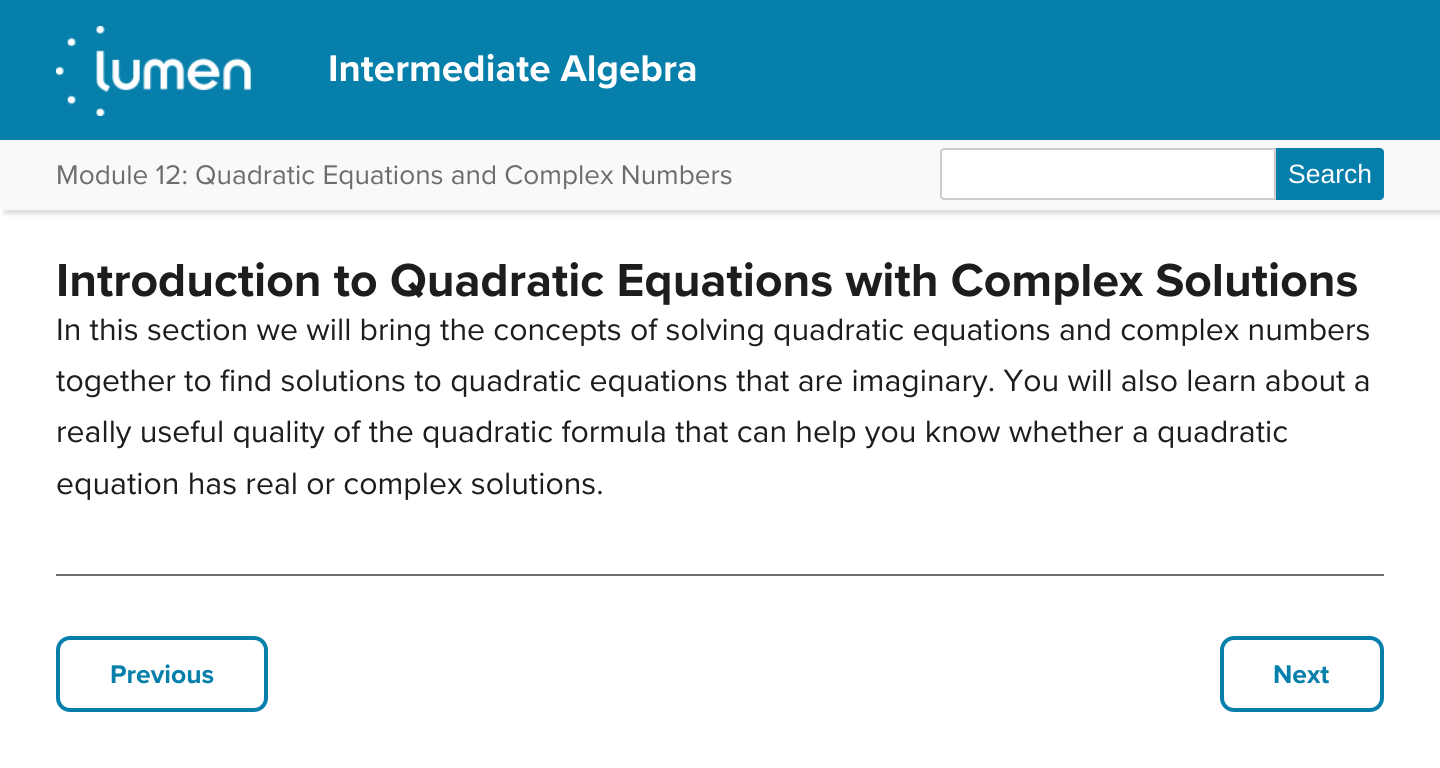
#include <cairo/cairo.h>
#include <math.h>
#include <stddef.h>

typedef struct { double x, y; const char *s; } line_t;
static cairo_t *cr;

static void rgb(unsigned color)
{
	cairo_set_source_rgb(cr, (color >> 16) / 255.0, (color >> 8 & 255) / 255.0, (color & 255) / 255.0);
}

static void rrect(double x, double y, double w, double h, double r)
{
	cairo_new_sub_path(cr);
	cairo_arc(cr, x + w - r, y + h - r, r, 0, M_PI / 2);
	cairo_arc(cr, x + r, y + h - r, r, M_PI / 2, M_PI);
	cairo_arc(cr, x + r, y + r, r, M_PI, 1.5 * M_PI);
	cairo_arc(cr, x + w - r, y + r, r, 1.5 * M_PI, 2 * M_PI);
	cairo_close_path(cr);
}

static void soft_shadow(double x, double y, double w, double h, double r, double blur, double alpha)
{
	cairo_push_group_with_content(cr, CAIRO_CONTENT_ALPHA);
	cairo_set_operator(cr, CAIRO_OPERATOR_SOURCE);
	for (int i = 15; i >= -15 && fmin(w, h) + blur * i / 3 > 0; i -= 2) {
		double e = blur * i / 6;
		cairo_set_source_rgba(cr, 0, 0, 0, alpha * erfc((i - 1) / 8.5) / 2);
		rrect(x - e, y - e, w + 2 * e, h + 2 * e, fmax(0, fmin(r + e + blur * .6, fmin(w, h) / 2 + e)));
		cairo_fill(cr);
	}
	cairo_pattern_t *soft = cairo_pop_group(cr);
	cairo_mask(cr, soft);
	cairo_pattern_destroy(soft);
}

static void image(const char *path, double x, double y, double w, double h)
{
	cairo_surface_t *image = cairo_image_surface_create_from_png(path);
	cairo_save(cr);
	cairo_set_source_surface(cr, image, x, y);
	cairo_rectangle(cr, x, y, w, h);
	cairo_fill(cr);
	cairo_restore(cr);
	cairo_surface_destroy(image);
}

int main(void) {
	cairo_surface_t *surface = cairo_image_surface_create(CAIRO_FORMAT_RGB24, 1440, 768);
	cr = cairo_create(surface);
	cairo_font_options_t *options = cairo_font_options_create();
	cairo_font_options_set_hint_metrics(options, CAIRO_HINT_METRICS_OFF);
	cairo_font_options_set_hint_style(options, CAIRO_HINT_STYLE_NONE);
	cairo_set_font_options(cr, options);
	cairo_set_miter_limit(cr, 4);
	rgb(0xffffff);
	cairo_paint(cr);
	rgb(0xdddddd);
	soft_shadow(4, 144, 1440, 70, 0, 2, 1);
	rgb(0x077fab);
	cairo_rectangle(cr, 0, 0, 1440, 140);
	cairo_fill(cr);
	image("img/1.png", 56, 26, 195, 90);
	rgb(0xf9f9f9);
	cairo_rectangle(cr, 0, 140, 1440, 70);
	cairo_fill(cr);
	rgb(0xffffff);
	cairo_new_path(cr);
	cairo_move_to(cr, 944, 149);
	cairo_line_to(cr, 1275, 149);
	cairo_line_to(cr, 1275, 199);
	cairo_line_to(cr, 944, 199);
	cairo_curve_to(cr, 942.5, 199, 941, 197.5, 941, 196);
	cairo_line_to(cr, 941, 152);
	cairo_curve_to(cr, 941, 150.5, 942.5, 149, 944, 149);
	cairo_close_path(cr);
	cairo_fill_preserve(cr);
	rgb(0xcccccc);
	cairo_stroke(cr);
	rgb(0x077fab);
	cairo_new_path(cr);
	cairo_move_to(cr, 1276, 148);
	cairo_line_to(cr, 1380, 148);
	cairo_curve_to(cr, 1382, 148, 1384, 150, 1384, 152);
	cairo_line_to(cr, 1384, 196);
	cairo_curve_to(cr, 1384, 198, 1382, 200, 1380, 200);
	cairo_line_to(cr, 1276, 200);
	cairo_close_path(cr);
	cairo_fill(cr);
	rgb(0x6d6d6d);
	cairo_rectangle(cr, 56, 574, 1328, 2);
	cairo_fill(cr);
	rrect(58, 638, 208, 72, 12);
	rgb(0x077fab);
	cairo_set_line_width(cr, 4);
	cairo_stroke(cr);
	rrect(1222, 638, 160, 72, 12);
	cairo_stroke(cr);
	cairo_select_font_face(cr, "Proxima Nova", CAIRO_FONT_SLANT_NORMAL, CAIRO_FONT_WEIGHT_BOLD);
	cairo_set_font_size(cr, 38.5);
	rgb(0xffffff);
	cairo_move_to(cr, 328, 81);
	cairo_show_text(cr, "Intermediate Algebra");
	cairo_select_font_face(cr, "Proxima Nova", CAIRO_FONT_SLANT_NORMAL, CAIRO_FONT_WEIGHT_NORMAL);
	cairo_set_font_size(cr, 28);
	rgb(0x6d6d6d);
	cairo_move_to(cr, 56, 184);
	cairo_show_text(cr, "Module 12: Quadratic Equations and Complex Numbers");
	cairo_select_font_face(cr, "Liberation Sans", CAIRO_FONT_SLANT_NORMAL, CAIRO_FONT_WEIGHT_NORMAL);
	cairo_set_font_size(cr, 26.5);
	rgb(0xffffff);
	cairo_move_to(cr, 1288, 183);
	cairo_show_text(cr, "Search");
	cairo_select_font_face(cr, "Proxima Nova", CAIRO_FONT_SLANT_NORMAL, CAIRO_FONT_WEIGHT_BOLD);
	cairo_set_font_size(cr, 48);
	rgb(0x1d1d1d);
	cairo_move_to(cr, 56, 296);
	cairo_show_text(cr, "Introduction to Quadratic Equations with Complex Solutions");
	cairo_select_font_face(cr, "Proxima Nova", CAIRO_FONT_SLANT_NORMAL, CAIRO_FONT_WEIGHT_NORMAL);
	cairo_set_font_size(cr, 32);
	{
		static const line_t items[] = {
			{56, 340, "In this section we will bring the concepts of solving quadratic equations and complex numbers"},
			{56, 391, "together to find solutions to quadratic equations that are imaginary. You will also learn about a"},
			{56, 442, "really useful quality of the quadratic formula that can help you know whether a quadratic"},
			{56, 494, "equation has real or complex solutions."},
		};
		for (size_t i = 0; i < sizeof items / sizeof *items; i++) {
			cairo_move_to(cr, items[i].x, items[i].y);
			cairo_show_text(cr, items[i].s);
		}
	}
	cairo_select_font_face(cr, "Proxima Nova", CAIRO_FONT_SLANT_NORMAL, CAIRO_FONT_WEIGHT_BOLD);
	cairo_set_font_size(cr, 26.5);
	rgb(0x077fab);
	cairo_move_to(cr, 110, 683);
	cairo_show_text(cr, "Previous");
	cairo_move_to(cr, 1273, 683);
	cairo_show_text(cr, "Next");
	cairo_surface_write_to_png(surface, "page.png");
	cairo_font_options_destroy(options);
	cairo_destroy(cr);
	cairo_surface_destroy(surface);
	return 0;
}
